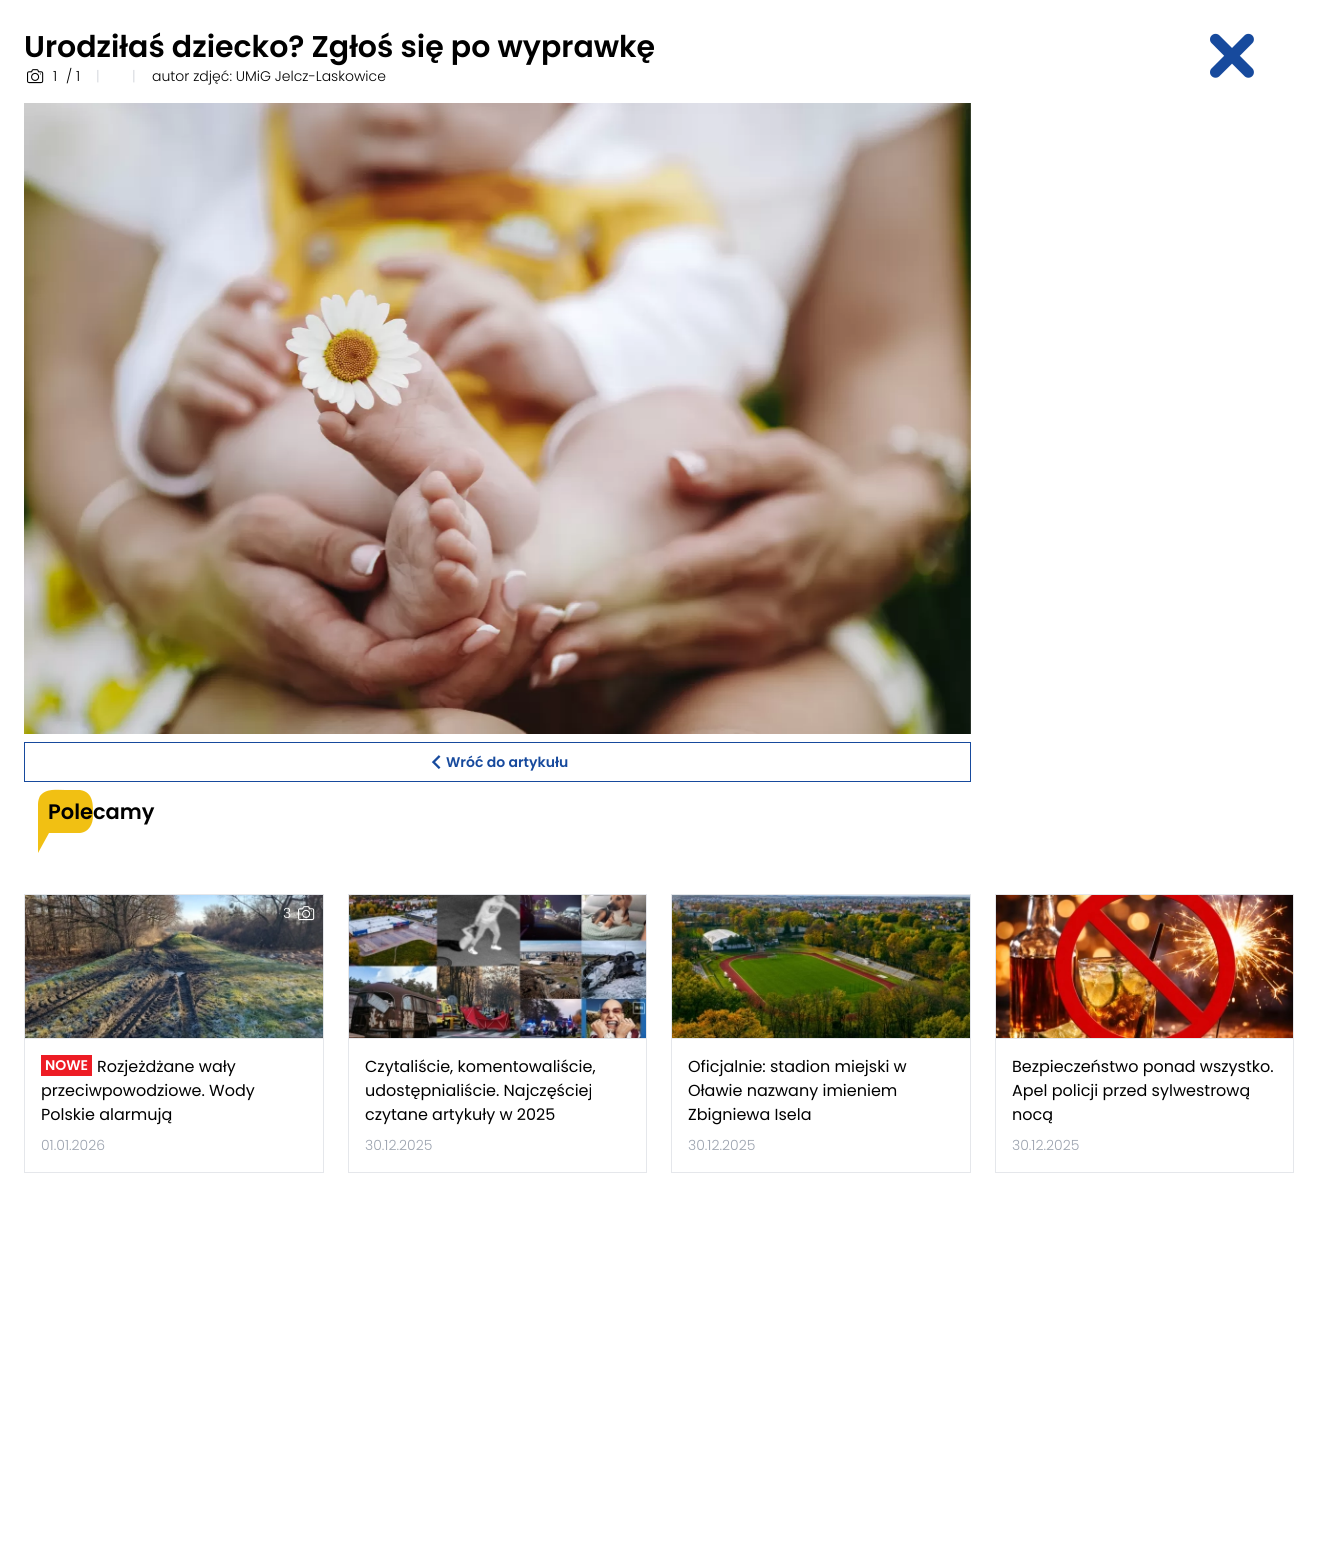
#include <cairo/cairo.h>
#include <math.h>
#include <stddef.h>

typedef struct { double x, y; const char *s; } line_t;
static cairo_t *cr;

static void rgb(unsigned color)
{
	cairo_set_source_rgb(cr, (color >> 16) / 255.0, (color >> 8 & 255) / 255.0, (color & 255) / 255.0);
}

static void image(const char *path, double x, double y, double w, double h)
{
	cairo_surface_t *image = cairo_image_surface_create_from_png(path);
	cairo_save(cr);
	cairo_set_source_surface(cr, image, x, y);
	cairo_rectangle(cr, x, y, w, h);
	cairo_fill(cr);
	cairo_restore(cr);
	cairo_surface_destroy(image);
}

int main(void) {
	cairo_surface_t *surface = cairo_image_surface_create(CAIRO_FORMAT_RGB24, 1318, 1542);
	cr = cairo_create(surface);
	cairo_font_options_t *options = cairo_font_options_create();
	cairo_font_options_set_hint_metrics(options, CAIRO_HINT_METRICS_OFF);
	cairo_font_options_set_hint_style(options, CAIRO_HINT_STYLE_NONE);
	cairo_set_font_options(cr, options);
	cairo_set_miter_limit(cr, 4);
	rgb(0xffffff);
	cairo_paint(cr);
	image("img/1.png", 27, 69, 17, 15);
	image("img/2.png", 24, 103, 947, 631);
	cairo_rectangle(cr, 24.5, 742.5, 946, 39);
	rgb(0x174a9d);
	cairo_set_line_width(cr, 1);
	cairo_stroke(cr);
	image("img/3.png", 431, 755, 10, 14);
	rgb(0xf1c013);
	cairo_new_path(cr);
	cairo_move_to(cr, 38, 804);
	cairo_curve_to(cr, 38, 801, 39, 798, 40, 796);
	cairo_curve_to(cr, 46, 788, 57, 790, 65, 790);
	cairo_line_to(cr, 80, 790);
	cairo_curve_to(cr, 94, 792, 93, 806, 93, 816);
	cairo_curve_to(cr, 93, 824, 89, 832, 80, 833);
	cairo_line_to(cr, 49, 833);
	cairo_line_to(cr, 38, 853);
	cairo_close_path(cr);
	cairo_fill(cr);
	cairo_rectangle(cr, 24.5, 894.5, 299, 278);
	rgb(0xe5e7eb);
	cairo_stroke(cr);
	image("img/4.png", 25, 895, 298, 143);
	image("img/5.png", 298, 906, 17, 15);
	cairo_rectangle(cr, 25, 1038, 298, 1);
	cairo_fill(cr);
	rgb(0xed1c24);
	cairo_rectangle(cr, 41, 1055, 51, 21);
	cairo_fill(cr);
	cairo_rectangle(cr, 348.5, 894.5, 298, 278);
	rgb(0xe5e7eb);
	cairo_stroke(cr);
	image("img/6.png", 349, 895, 297, 143);
	cairo_rectangle(cr, 349, 1038, 297, 1);
	cairo_fill(cr);
	cairo_rectangle(cr, 671.5, 894.5, 299, 278);
	cairo_stroke(cr);
	image("img/7.png", 672, 895, 298, 143);
	cairo_rectangle(cr, 672, 1038, 298, 1);
	cairo_fill(cr);
	cairo_rectangle(cr, 995.5, 894.5, 298, 278);
	cairo_stroke(cr);
	image("img/8.png", 996, 895, 297, 143);
	cairo_rectangle(cr, 996, 1038, 297, 1);
	cairo_fill(cr);
	image("img/9.png", 1210, 33, 44, 45);
	cairo_select_font_face(cr, "Poppins SemiBold", CAIRO_FONT_SLANT_NORMAL, CAIRO_FONT_WEIGHT_NORMAL);
	cairo_set_font_size(cr, 30);
	rgb(0x000000);
	cairo_move_to(cr, 24, 57);
	cairo_show_text(cr, "Urodziłaś dziecko? Zgłoś się po wyprawkę");
	cairo_select_font_face(cr, "Poppins Light", CAIRO_FONT_SLANT_NORMAL, CAIRO_FONT_WEIGHT_NORMAL);
	cairo_set_font_size(cr, 14);
	cairo_move_to(cr, 53, 81);
	cairo_show_text(cr, "1");
	cairo_move_to(cr, 66, 81);
	cairo_show_text(cr, "/ 1");
	rgb(0xd1d5db);
	cairo_move_to(cr, 96, 81);
	cairo_show_text(cr, "|");
	cairo_move_to(cr, 132, 81);
	cairo_show_text(cr, "|");
	rgb(0x000000);
	cairo_move_to(cr, 152, 81);
	cairo_show_text(cr, "autor zdjęć: UMiG Jelcz-Laskowice");
	cairo_select_font_face(cr, "Poppins SemiBold", CAIRO_FONT_SLANT_NORMAL, CAIRO_FONT_WEIGHT_NORMAL);
	rgb(0x174a9d);
	cairo_move_to(cr, 446, 767);
	cairo_show_text(cr, "Wróć do artykułu");
	cairo_set_font_size(cr, 21);
	rgb(0x000000);
	cairo_move_to(cr, 48, 819);
	cairo_show_text(cr, "Polecamy");
	cairo_select_font_face(cr, "Poppins Light", CAIRO_FONT_SLANT_NORMAL, CAIRO_FONT_WEIGHT_NORMAL);
	cairo_set_font_size(cr, 14);
	rgb(0xffffff);
	cairo_move_to(cr, 283, 918);
	cairo_show_text(cr, "3");
	cairo_select_font_face(cr, "Poppins", CAIRO_FONT_SLANT_NORMAL, CAIRO_FONT_WEIGHT_NORMAL);
	cairo_set_font_size(cr, 16);
	rgb(0x000000);
	{
		static const line_t items[] = {
			{97, 1072, "Rozjeżdżane wały"},
			{41, 1096, "przeciwpowodziowe. Wody"},
			{41, 1120, "Polskie alarmują"},
		};
		for (size_t i = 0; i < sizeof items / sizeof *items; i++) {
			cairo_move_to(cr, items[i].x, items[i].y);
			cairo_show_text(cr, items[i].s);
		}
	}
	cairo_select_font_face(cr, "Poppins SemiBold", CAIRO_FONT_SLANT_NORMAL, CAIRO_FONT_WEIGHT_NORMAL);
	cairo_set_font_size(cr, 14);
	rgb(0xffffff);
	cairo_move_to(cr, 45, 1070);
	cairo_show_text(cr, "NOWE");
	cairo_select_font_face(cr, "Poppins Light", CAIRO_FONT_SLANT_NORMAL, CAIRO_FONT_WEIGHT_NORMAL);
	rgb(0x9ca3af);
	cairo_move_to(cr, 41, 1150);
	cairo_show_text(cr, "01.01.2026");
	cairo_select_font_face(cr, "Poppins", CAIRO_FONT_SLANT_NORMAL, CAIRO_FONT_WEIGHT_NORMAL);
	cairo_set_font_size(cr, 16);
	rgb(0x000000);
	{
		static const line_t items[] = {
			{365, 1072, "Czytaliście, komentowaliście,"},
			{365, 1096, "udostępnialiście. Najczęściej"},
			{365, 1120, "czytane artykuły w 2025"},
		};
		for (size_t i = 0; i < sizeof items / sizeof *items; i++) {
			cairo_move_to(cr, items[i].x, items[i].y);
			cairo_show_text(cr, items[i].s);
		}
	}
	cairo_select_font_face(cr, "Poppins Light", CAIRO_FONT_SLANT_NORMAL, CAIRO_FONT_WEIGHT_NORMAL);
	cairo_set_font_size(cr, 14);
	rgb(0x9ca3af);
	cairo_move_to(cr, 365, 1150);
	cairo_show_text(cr, "30.12.2025");
	cairo_select_font_face(cr, "Poppins", CAIRO_FONT_SLANT_NORMAL, CAIRO_FONT_WEIGHT_NORMAL);
	cairo_set_font_size(cr, 16);
	rgb(0x000000);
	{
		static const line_t items[] = {
			{688, 1072, "Oficjalnie: stadion miejski w"},
			{688, 1096, "Oławie nazwany imieniem"},
			{688, 1120, "Zbigniewa Isela"},
		};
		for (size_t i = 0; i < sizeof items / sizeof *items; i++) {
			cairo_move_to(cr, items[i].x, items[i].y);
			cairo_show_text(cr, items[i].s);
		}
	}
	cairo_select_font_face(cr, "Poppins Light", CAIRO_FONT_SLANT_NORMAL, CAIRO_FONT_WEIGHT_NORMAL);
	cairo_set_font_size(cr, 14);
	rgb(0x9ca3af);
	cairo_move_to(cr, 688, 1150);
	cairo_show_text(cr, "30.12.2025");
	cairo_select_font_face(cr, "Poppins", CAIRO_FONT_SLANT_NORMAL, CAIRO_FONT_WEIGHT_NORMAL);
	cairo_set_font_size(cr, 16);
	rgb(0x000000);
	{
		static const line_t items[] = {
			{1012, 1072, "Bezpieczeństwo ponad wszystko."},
			{1012, 1096, "Apel policji przed sylwestrową"},
			{1012, 1120, "nocą"},
		};
		for (size_t i = 0; i < sizeof items / sizeof *items; i++) {
			cairo_move_to(cr, items[i].x, items[i].y);
			cairo_show_text(cr, items[i].s);
		}
	}
	cairo_select_font_face(cr, "Poppins Light", CAIRO_FONT_SLANT_NORMAL, CAIRO_FONT_WEIGHT_NORMAL);
	cairo_set_font_size(cr, 14);
	rgb(0x9ca3af);
	cairo_move_to(cr, 1012, 1150);
	cairo_show_text(cr, "30.12.2025");
	cairo_surface_write_to_png(surface, "page.png");
	cairo_font_options_destroy(options);
	cairo_destroy(cr);
	cairo_surface_destroy(surface);
	return 0;
}
